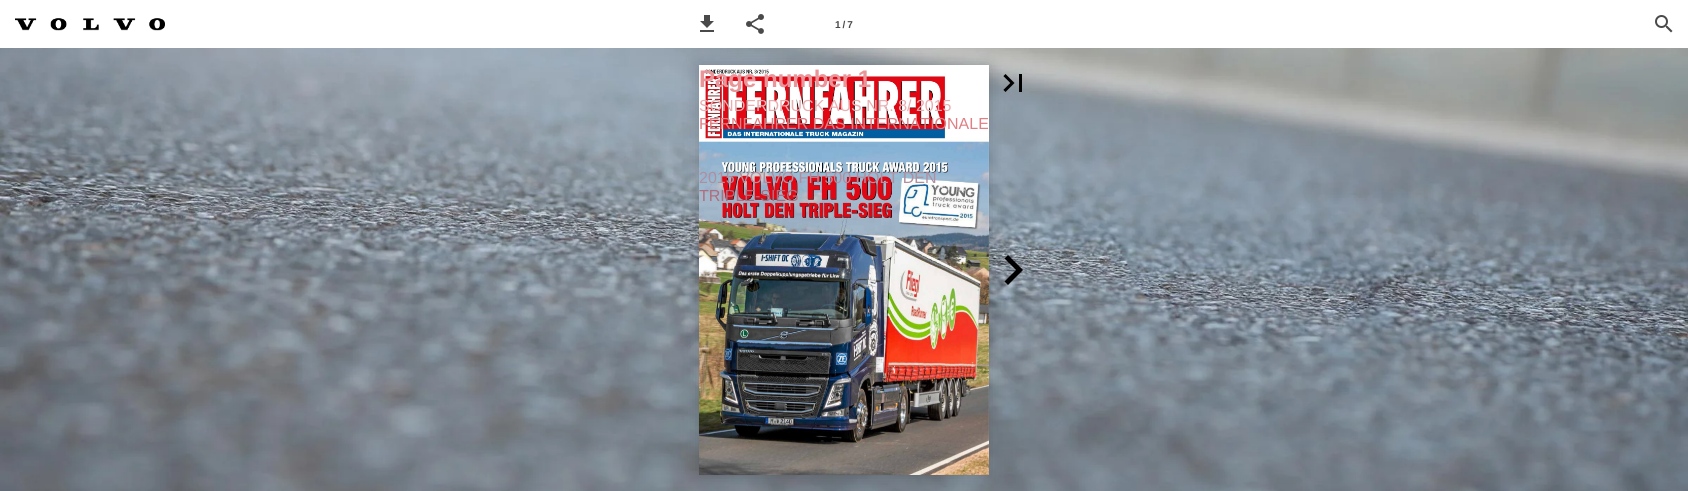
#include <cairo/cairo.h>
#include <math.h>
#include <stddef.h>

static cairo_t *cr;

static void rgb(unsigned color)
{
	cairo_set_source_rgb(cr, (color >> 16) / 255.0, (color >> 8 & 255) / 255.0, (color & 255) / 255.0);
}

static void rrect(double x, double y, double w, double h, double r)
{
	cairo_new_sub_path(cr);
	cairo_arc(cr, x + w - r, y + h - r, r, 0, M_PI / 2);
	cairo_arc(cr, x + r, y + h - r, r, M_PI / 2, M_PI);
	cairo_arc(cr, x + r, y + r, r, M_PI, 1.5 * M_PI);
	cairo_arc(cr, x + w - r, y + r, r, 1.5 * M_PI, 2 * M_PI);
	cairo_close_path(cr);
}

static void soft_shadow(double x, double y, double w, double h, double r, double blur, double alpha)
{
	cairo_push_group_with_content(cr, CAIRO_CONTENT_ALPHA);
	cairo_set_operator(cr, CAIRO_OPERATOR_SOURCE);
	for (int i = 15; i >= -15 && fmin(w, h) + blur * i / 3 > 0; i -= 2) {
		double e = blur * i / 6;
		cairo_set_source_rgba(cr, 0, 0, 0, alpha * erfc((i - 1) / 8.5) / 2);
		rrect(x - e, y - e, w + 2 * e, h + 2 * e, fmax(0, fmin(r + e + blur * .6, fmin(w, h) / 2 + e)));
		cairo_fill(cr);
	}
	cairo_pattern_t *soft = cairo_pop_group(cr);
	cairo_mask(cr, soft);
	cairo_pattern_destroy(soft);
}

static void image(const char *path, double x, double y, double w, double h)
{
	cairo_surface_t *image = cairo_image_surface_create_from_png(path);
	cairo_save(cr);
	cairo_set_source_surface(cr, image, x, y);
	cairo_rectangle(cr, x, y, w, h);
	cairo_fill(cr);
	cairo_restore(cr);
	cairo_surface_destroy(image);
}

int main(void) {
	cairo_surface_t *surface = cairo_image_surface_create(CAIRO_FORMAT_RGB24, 1688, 491);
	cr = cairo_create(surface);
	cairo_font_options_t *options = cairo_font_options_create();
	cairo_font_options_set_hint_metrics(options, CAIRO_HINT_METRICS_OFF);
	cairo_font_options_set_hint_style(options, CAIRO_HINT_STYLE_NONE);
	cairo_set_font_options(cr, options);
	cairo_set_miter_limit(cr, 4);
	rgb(0xffffff);
	cairo_paint(cr);
	image("img/1.png", 15, 18, 150, 13);
	image("img/2.png", 700, 15, 14, 17);
	image("img/3.png", 746, 14, 18, 20);
	image("img/4.png", 1655, 15, 18, 18);
	image("img/5.png", 0, 48, 1688, 443);
	rgb(0x000000);
	soft_shadow(699, 65, 290, 410, 0, 8, 0.2);
	rgb(0xffffff);
	cairo_rectangle(cr, 699, 65, 290, 410);
	cairo_fill(cr);
	image("img/6.png", 699, 69, 290, 406);
	image("img/7.png", 1003, 74, 19, 18);
	rgb(0x000000);
	cairo_new_path(cr);
	cairo_move_to(cr, 1008, 255);
	cairo_line_to(cr, 1004.5, 258.5);
	cairo_line_to(cr, 1016, 270);
	cairo_line_to(cr, 1004.5, 281.5);
	cairo_line_to(cr, 1008, 285);
	cairo_line_to(cr, 1023, 270);
	cairo_close_path(cr);
	cairo_fill(cr);
	cairo_select_font_face(cr, "Liberation Sans", CAIRO_FONT_SLANT_NORMAL, CAIRO_FONT_WEIGHT_BOLD);
	cairo_set_font_size(cr, 10);
	rgb(0x4a4a4a);
	cairo_move_to(cr, 835, 28);
	cairo_show_text(cr, "1 / 7");
	cairo_set_font_size(cr, 24);
	rgb(0xea959a);
	cairo_move_to(cr, 699, 87);
	cairo_show_text(cr, "Page number 1");
	cairo_select_font_face(cr, "Liberation Sans", CAIRO_FONT_SLANT_NORMAL, CAIRO_FONT_WEIGHT_NORMAL);
	cairo_set_font_size(cr, 16);
	rgb(0xeaaeb1);
	cairo_move_to(cr, 699, 111);
	cairo_show_text(cr, "SONDERDRUCK AUS NR. 8/ 2015");
	rgb(0xdf8086);
	cairo_move_to(cr, 699, 129);
	cairo_show_text(cr, "FERNFAHRER DAS INTERNATIONALE");
	rgb(0xaf8e9f);
	cairo_move_to(cr, 699, 183);
	cairo_show_text(cr, "2015 VOLVO FH 500 HOLT DEN");
	rgb(0xb06d7d);
	cairo_move_to(cr, 699, 201);
	cairo_show_text(cr, "TRIPLE-SIEG");
	cairo_surface_write_to_png(surface, "page.png");
	cairo_font_options_destroy(options);
	cairo_destroy(cr);
	cairo_surface_destroy(surface);
	return 0;
}
